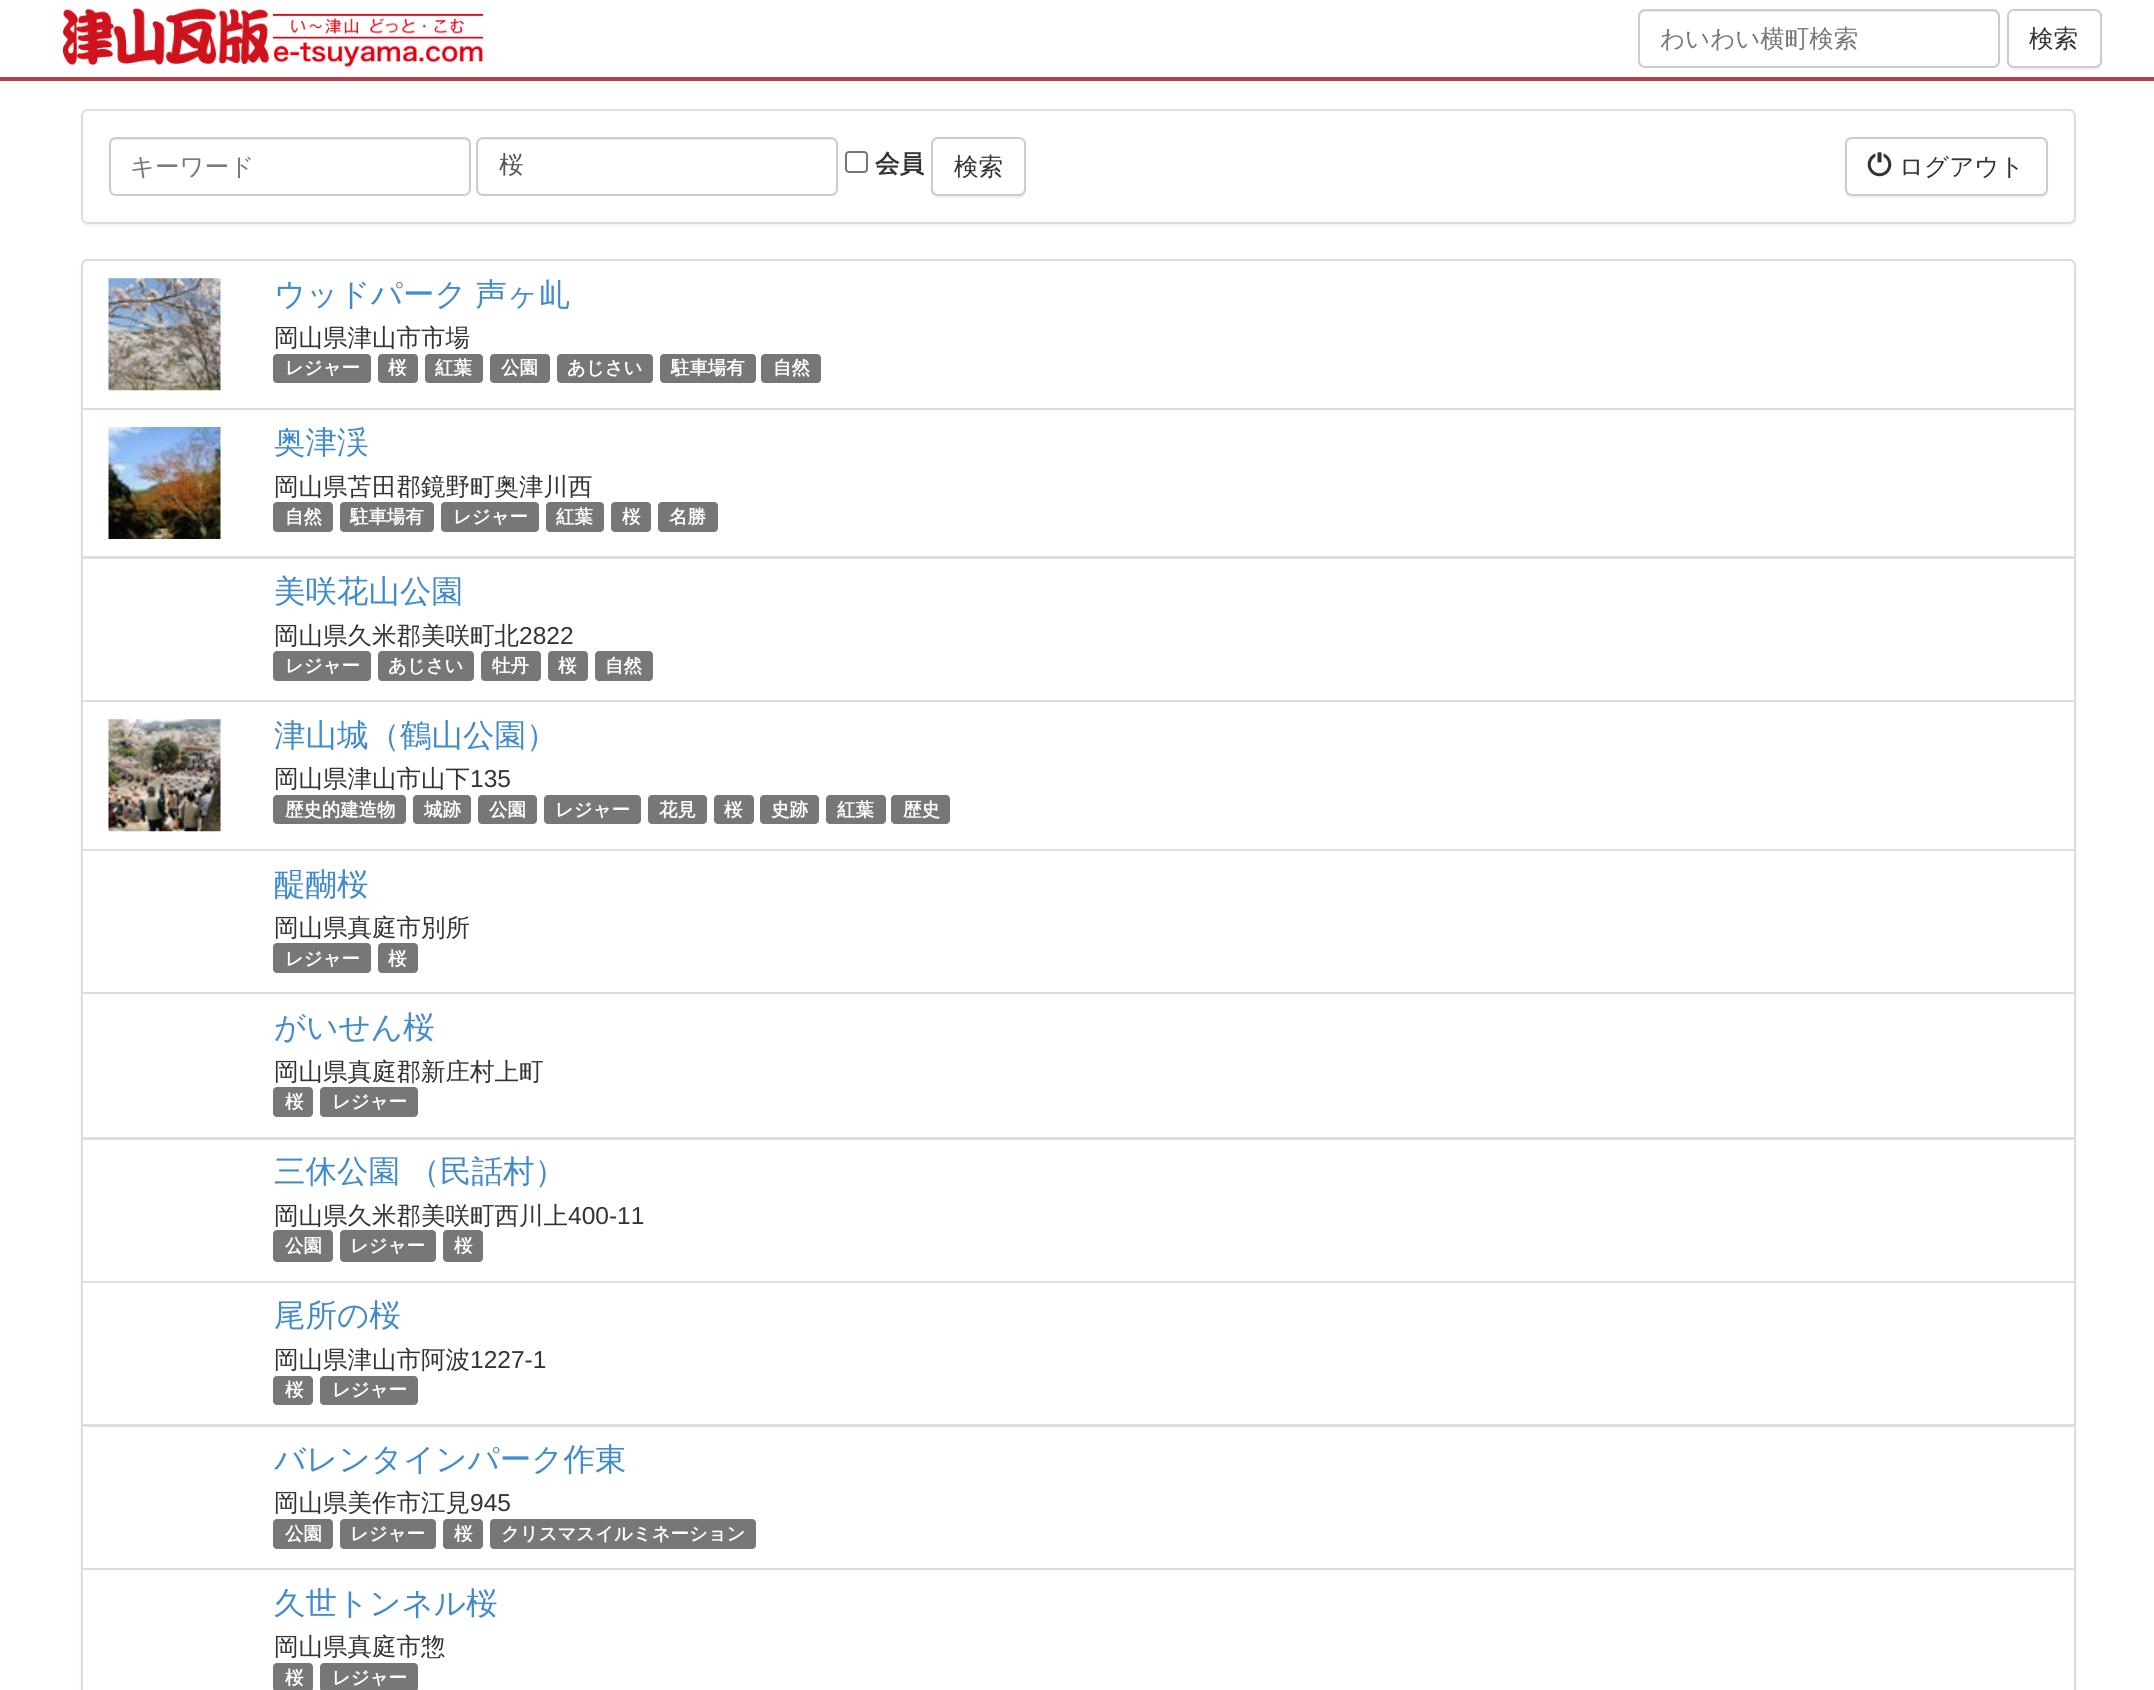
#include <cairo/cairo.h>
#include <math.h>
#include <stddef.h>

typedef struct { double x, y; const char *s; } line_t;
static cairo_t *cr;

static void rgb(unsigned color)
{
	cairo_set_source_rgb(cr, (color >> 16) / 255.0, (color >> 8 & 255) / 255.0, (color & 255) / 255.0);
}

static void tracked(double x, double y, const char *s, double letter, double word)
{
	cairo_move_to(cr, x, y);
	while (*s) {
		char ch[5] = {0};
		int n = 0;
		do ch[n++] = *s++; while ((*s & 0xC0) == 0x80);
		cairo_show_text(cr, ch);
		cairo_rel_move_to(cr, letter + word * (*ch == ' '), 0);
	}
}

static void rrect(double x, double y, double w, double h, double r)
{
	cairo_new_sub_path(cr);
	cairo_arc(cr, x + w - r, y + h - r, r, 0, M_PI / 2);
	cairo_arc(cr, x + r, y + h - r, r, M_PI / 2, M_PI);
	cairo_arc(cr, x + r, y + r, r, M_PI, 1.5 * M_PI);
	cairo_arc(cr, x + w - r, y + r, r, 1.5 * M_PI, 2 * M_PI);
	cairo_close_path(cr);
}

static void soft_shadow(double x, double y, double w, double h, double r, double blur, double alpha)
{
	cairo_push_group_with_content(cr, CAIRO_CONTENT_ALPHA);
	cairo_set_operator(cr, CAIRO_OPERATOR_SOURCE);
	for (int i = 15; i >= -15 && fmin(w, h) + blur * i / 3 > 0; i -= 2) {
		double e = blur * i / 6;
		cairo_set_source_rgba(cr, 0, 0, 0, alpha * erfc((i - 1) / 8.5) / 2);
		rrect(x - e, y - e, w + 2 * e, h + 2 * e, fmax(0, fmin(r + e + blur * .6, fmin(w, h) / 2 + e)));
		cairo_fill(cr);
	}
	cairo_pattern_t *soft = cairo_pop_group(cr);
	cairo_mask(cr, soft);
	cairo_pattern_destroy(soft);
}

static void image(const char *path, double x, double y, double w, double h)
{
	cairo_surface_t *image = cairo_image_surface_create_from_png(path);
	cairo_save(cr);
	cairo_set_source_surface(cr, image, x, y);
	cairo_rectangle(cr, x, y, w, h);
	cairo_fill(cr);
	cairo_restore(cr);
	cairo_surface_destroy(image);
}

int main(void) {
	cairo_surface_t *surface = cairo_image_surface_create(CAIRO_FORMAT_RGB24, 2154, 1690);
	cr = cairo_create(surface);
	cairo_font_options_t *options = cairo_font_options_create();
	cairo_font_options_set_hint_metrics(options, CAIRO_HINT_METRICS_OFF);
	cairo_font_options_set_hint_style(options, CAIRO_HINT_STYLE_NONE);
	cairo_set_font_options(cr, options);
	cairo_set_miter_limit(cr, 4);
	rgb(0xffffff);
	cairo_paint(cr);
	rgb(0xb5404b);
	cairo_rectangle(cr, 0, 77, 2154, 4);
	cairo_fill(cr);
	image("img/1.png", 63, 8, 420, 59);
	rgb(0xececec);
	cairo_new_path(cr);
	cairo_move_to(cr, 1645, 12);
	cairo_line_to(cr, 1993, 12);
	cairo_curve_to(cr, 1996, 12, 1998, 15, 1998, 18);
	cairo_line_to(cr, 1998, 63);
	cairo_line_to(cr, 1997, 66);
	cairo_curve_to(cr, 1998, 65, 1999, 63, 1999, 62);
	cairo_line_to(cr, 1999, 16);
	cairo_curve_to(cr, 1999, 13, 1997, 11, 1994, 11);
	cairo_line_to(cr, 1645, 11);
	cairo_curve_to(cr, 1642, 11, 1640, 13, 1640, 16);
	cairo_line_to(cr, 1640, 18);
	cairo_curve_to(cr, 1640, 15, 1642, 12, 1645, 12);
	cairo_close_path(cr);
	cairo_fill(cr);
	rrect(1639, 10, 360, 57, 6);
	rgb(0xcccccc);
	cairo_stroke(cr);
	rgb(0x000000);
	soft_shadow(2007, 11, 95, 59, 7, 1, 0.07);
	rgb(0xffffff);
	rrect(2008, 10, 93, 57, 6);
	cairo_fill_preserve(cr);
	rgb(0xcccccc);
	cairo_stroke(cr);
	rgb(0x000000);
	soft_shadow(81, 110, 1995, 116, 7, 1, 0.05);
	rgb(0xffffff);
	rrect(82, 110, 1993, 113, 6);
	cairo_fill_preserve(cr);
	rgb(0xdddddd);
	cairo_stroke(cr);
	rgb(0xececec);
	cairo_new_path(cr);
	cairo_move_to(cr, 116, 140);
	cairo_line_to(cr, 464, 140);
	cairo_curve_to(cr, 467, 140, 469, 142, 469, 145);
	cairo_curve_to(cr, 469, 142, 468, 138, 464, 138);
	cairo_line_to(cr, 115, 138);
	cairo_curve_to(cr, 111, 138, 110, 142, 110, 145);
	cairo_curve_to(cr, 110, 142, 113, 140, 116, 140);
	cairo_close_path(cr);
	cairo_fill(cr);
	rrect(110, 138, 360, 57, 6);
	rgb(0xcccccc);
	cairo_stroke(cr);
	rgb(0xececec);
	cairo_new_path(cr);
	cairo_move_to(cr, 483, 140);
	cairo_line_to(cr, 831, 140);
	cairo_curve_to(cr, 834, 140, 836, 142, 836, 145);
	cairo_line_to(cr, 836, 192);
	cairo_curve_to(cr, 837, 191, 837, 190, 837, 189);
	cairo_line_to(cr, 837, 143);
	cairo_curve_to(cr, 837, 140, 835, 138, 832, 138);
	cairo_line_to(cr, 483, 138);
	cairo_curve_to(cr, 480, 138, 478, 140, 478, 143);
	cairo_line_to(cr, 478, 145);
	cairo_curve_to(cr, 478, 142, 480, 140, 483, 140);
	cairo_close_path(cr);
	cairo_fill(cr);
	rrect(477, 138, 360, 57, 6);
	rgb(0xcccccc);
	cairo_stroke(cr);
	rrect(846, 152, 21, 20, 3);
	rgb(0x767676);
	cairo_stroke(cr);
	rgb(0x000000);
	soft_shadow(931, 138, 95, 60, 7, 1, 0.07);
	rgb(0xffffff);
	rrect(932, 138, 93, 57, 6);
	cairo_fill_preserve(cr);
	rgb(0xcccccc);
	cairo_stroke(cr);
	rgb(0x000000);
	soft_shadow(1845, 138, 203, 60, 7, 1, 0.07);
	rgb(0xffffff);
	rrect(1846, 138, 201, 57, 6);
	cairo_fill_preserve(cr);
	rgb(0xcccccc);
	cairo_stroke(cr);
	image("img/2.png", 1867, 152, 25, 25);
	rgb(0x000000);
	soft_shadow(81, 261, 1995, 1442, 7, 2, 0.07);
	rgb(0xffffff);
	cairo_new_path(cr);
	cairo_move_to(cr, 88, 260);
	cairo_line_to(cr, 2069, 260);
	cairo_curve_to(cr, 2072.5, 260, 2075, 262.5, 2075, 266);
	cairo_line_to(cr, 2075, 409);
	cairo_line_to(cr, 82, 409);
	cairo_line_to(cr, 82, 266);
	cairo_curve_to(cr, 82, 262.5, 84.5, 260, 88, 260);
	cairo_close_path(cr);
	cairo_fill_preserve(cr);
	rgb(0xdddddd);
	cairo_stroke(cr);
	image("img/3.png", 108, 278, 113, 113);
	rgb(0x777777);
	rrect(273, 354, 98, 29, 4);
	cairo_fill(cr);
	rrect(378, 354, 40, 29, 4);
	cairo_fill(cr);
	rrect(425, 354, 58, 29, 4);
	cairo_fill(cr);
	rrect(490, 354, 60, 29, 4);
	cairo_fill(cr);
	rrect(557, 354, 96, 29, 4);
	cairo_fill(cr);
	rrect(660, 354, 96, 29, 4);
	cairo_fill(cr);
	rrect(761, 354, 60, 29, 4);
	cairo_fill(cr);
	rgb(0xffffff);
	cairo_rectangle(cr, 82, 409, 1993, 148);
	cairo_fill_preserve(cr);
	rgb(0xdddddd);
	cairo_stroke(cr);
	image("img/4.png", 108, 427, 113, 112);
	rgb(0x777777);
	rrect(273, 502, 60, 30, 4);
	cairo_fill(cr);
	rrect(340, 502, 94, 30, 4);
	cairo_fill(cr);
	rrect(441, 502, 98, 30, 4);
	cairo_fill(cr);
	rrect(546, 502, 58, 30, 4);
	cairo_fill(cr);
	rrect(611, 502, 40, 30, 4);
	cairo_fill(cr);
	rrect(658, 502, 60, 30, 4);
	cairo_fill(cr);
	rgb(0xffffff);
	cairo_rectangle(cr, 82, 558, 1993, 143);
	cairo_fill_preserve(cr);
	rgb(0xdddddd);
	cairo_stroke(cr);
	rgb(0x777777);
	rrect(273, 651, 98, 30, 4);
	cairo_fill(cr);
	rrect(378, 651, 96, 30, 4);
	cairo_fill(cr);
	rrect(481, 651, 60, 30, 4);
	cairo_fill(cr);
	rrect(548, 651, 40, 30, 4);
	cairo_fill(cr);
	rrect(595, 651, 58, 30, 4);
	cairo_fill(cr);
	rgb(0xffffff);
	cairo_rectangle(cr, 82, 701, 1993, 149);
	cairo_fill_preserve(cr);
	rgb(0xdddddd);
	cairo_stroke(cr);
	image("img/5.png", 108, 719, 113, 113);
	rgb(0x777777);
	rrect(273, 795, 133, 29, 4);
	cairo_fill(cr);
	rrect(413, 795, 58, 29, 4);
	cairo_fill(cr);
	rrect(478, 795, 59, 29, 4);
	cairo_fill(cr);
	rrect(544, 795, 97, 29, 4);
	cairo_fill(cr);
	rrect(648, 795, 59, 29, 4);
	cairo_fill(cr);
	rrect(714, 795, 40, 29, 4);
	cairo_fill(cr);
	rrect(760, 795, 59, 29, 4);
	cairo_fill(cr);
	rrect(826, 795, 60, 29, 4);
	cairo_fill(cr);
	rrect(891, 795, 59, 29, 4);
	cairo_fill(cr);
	rgb(0xffffff);
	cairo_rectangle(cr, 82, 850, 1993, 143);
	cairo_fill_preserve(cr);
	rgb(0xdddddd);
	cairo_stroke(cr);
	rgb(0x777777);
	rrect(273, 943, 98, 30, 4);
	cairo_fill(cr);
	rrect(378, 943, 40, 30, 4);
	cairo_fill(cr);
	rgb(0xffffff);
	cairo_rectangle(cr, 82, 993, 1993, 145);
	cairo_fill_preserve(cr);
	rgb(0xdddddd);
	cairo_stroke(cr);
	rgb(0x777777);
	rrect(273, 1087, 40, 30, 4);
	cairo_fill(cr);
	rrect(320, 1087, 98, 30, 4);
	cairo_fill(cr);
	rgb(0xffffff);
	cairo_rectangle(cr, 82, 1139, 1993, 143);
	cairo_fill_preserve(cr);
	rgb(0xdddddd);
	cairo_stroke(cr);
	rgb(0x777777);
	rrect(273, 1230, 60, 32, 4);
	cairo_fill(cr);
	rrect(340, 1230, 96, 32, 4);
	cairo_fill(cr);
	rrect(443, 1230, 40, 32, 4);
	cairo_fill(cr);
	rgb(0xffffff);
	cairo_rectangle(cr, 82, 1282, 1993, 143);
	cairo_fill_preserve(cr);
	rgb(0xdddddd);
	cairo_stroke(cr);
	rgb(0x777777);
	rrect(273, 1376, 40, 29, 4);
	cairo_fill(cr);
	rrect(320, 1376, 98, 29, 4);
	cairo_fill(cr);
	rgb(0xffffff);
	cairo_rectangle(cr, 82, 1426, 1993, 143);
	cairo_fill_preserve(cr);
	rgb(0xdddddd);
	cairo_stroke(cr);
	rgb(0x777777);
	rrect(273, 1519, 60, 30, 4);
	cairo_fill(cr);
	rrect(340, 1519, 96, 30, 4);
	cairo_fill(cr);
	rrect(443, 1519, 40, 30, 4);
	cairo_fill(cr);
	rrect(490, 1519, 266, 30, 4);
	cairo_fill(cr);
	rgb(0xffffff);
	cairo_rectangle(cr, 82, 1569, 1993, 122);
	cairo_fill_preserve(cr);
	rgb(0xdddddd);
	cairo_stroke(cr);
	rgb(0x777777);
	rrect(273, 1663, 40, 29, 4);
	cairo_fill(cr);
	rrect(320, 1663, 98, 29, 4);
	cairo_fill(cr);
	cairo_select_font_face(cr, "WenQuanYi Zen Hei Medium", CAIRO_FONT_SLANT_NORMAL, CAIRO_FONT_WEIGHT_NORMAL);
	cairo_set_font_size(cr, 24.5);
	cairo_move_to(cr, 1660, 47);
	cairo_show_text(cr, "わいわい横町検索");
	rgb(0x333333);
	cairo_move_to(cr, 2029, 47);
	cairo_show_text(cr, "検索");
	rgb(0x777777);
	cairo_move_to(cr, 130, 175);
	cairo_show_text(cr, "キーワード");
	rgb(0x555555);
	cairo_move_to(cr, 499, 173);
	cairo_show_text(cr, "桜");
	cairo_select_font_face(cr, "WenQuanYi Zen Hei", CAIRO_FONT_SLANT_NORMAL, CAIRO_FONT_WEIGHT_BOLD);
	rgb(0x333333);
	cairo_move_to(cr, 875, 172);
	cairo_show_text(cr, "会員");
	cairo_select_font_face(cr, "WenQuanYi Zen Hei Medium", CAIRO_FONT_SLANT_NORMAL, CAIRO_FONT_WEIGHT_NORMAL);
	cairo_move_to(cr, 954, 175);
	cairo_show_text(cr, "検索");
	cairo_move_to(cr, 1899, 175);
	cairo_show_text(cr, "ログアウト");
	cairo_set_font_size(cr, 31.5);
	rgb(0x428bca);
	tracked(274, 305, "ウッドパーク 声ヶ乢", 0, -1);
	cairo_set_font_size(cr, 24.5);
	rgb(0x333333);
	cairo_move_to(cr, 274, 346);
	cairo_show_text(cr, "岡山県津山市市場");
	cairo_select_font_face(cr, "WenQuanYi Zen Hei", CAIRO_FONT_SLANT_NORMAL, CAIRO_FONT_WEIGHT_BOLD);
	cairo_set_font_size(cr, 18.4);
	rgb(0xffffff);
	{
		static const line_t items[] = {
			{285, 374, "レジャー"},
			{388, 374, "桜"},
			{435, 374, "紅葉"},
			{501, 374, "公園"},
			{567, 374, "あじさい"},
			{671, 374, "駐車場有"},
			{773, 374, "自然"},
		};
		for (size_t i = 0; i < sizeof items / sizeof *items; i++) {
			cairo_move_to(cr, items[i].x, items[i].y);
			cairo_show_text(cr, items[i].s);
		}
	}
	cairo_select_font_face(cr, "WenQuanYi Zen Hei Medium", CAIRO_FONT_SLANT_NORMAL, CAIRO_FONT_WEIGHT_NORMAL);
	cairo_set_font_size(cr, 31.5);
	rgb(0x428bca);
	cairo_move_to(cr, 274, 453);
	cairo_show_text(cr, "奥津渓");
	cairo_set_font_size(cr, 24.5);
	rgb(0x333333);
	cairo_move_to(cr, 274, 495);
	cairo_show_text(cr, "岡山県苫田郡鏡野町奥津川西");
	cairo_select_font_face(cr, "WenQuanYi Zen Hei", CAIRO_FONT_SLANT_NORMAL, CAIRO_FONT_WEIGHT_BOLD);
	cairo_set_font_size(cr, 18.4);
	rgb(0xffffff);
	{
		static const line_t items[] = {
			{285, 523, "自然"},
			{350, 523, "駐車場有"},
			{453, 523, "レジャー"},
			{556, 523, "紅葉"},
			{622, 523, "桜"},
			{669, 523, "名勝"},
		};
		for (size_t i = 0; i < sizeof items / sizeof *items; i++) {
			cairo_move_to(cr, items[i].x, items[i].y);
			cairo_show_text(cr, items[i].s);
		}
	}
	cairo_select_font_face(cr, "WenQuanYi Zen Hei Medium", CAIRO_FONT_SLANT_NORMAL, CAIRO_FONT_WEIGHT_NORMAL);
	cairo_set_font_size(cr, 31.5);
	rgb(0x428bca);
	cairo_move_to(cr, 274, 602);
	cairo_show_text(cr, "美咲花山公園");
	cairo_set_font_size(cr, 24.5);
	rgb(0x333333);
	cairo_move_to(cr, 274, 644);
	cairo_show_text(cr, "岡山県久米郡美咲町北");
	cairo_select_font_face(cr, "Liberation Sans", CAIRO_FONT_SLANT_NORMAL, CAIRO_FONT_WEIGHT_NORMAL);
	cairo_move_to(cr, 519, 644);
	cairo_show_text(cr, "2822");
	cairo_select_font_face(cr, "WenQuanYi Zen Hei", CAIRO_FONT_SLANT_NORMAL, CAIRO_FONT_WEIGHT_BOLD);
	cairo_set_font_size(cr, 18.4);
	rgb(0xffffff);
	{
		static const line_t items[] = {
			{285, 672, "レジャー"},
			{388, 672, "あじさい"},
			{492, 672, "牡丹"},
			{558, 672, "桜"},
			{605, 672, "自然"},
		};
		for (size_t i = 0; i < sizeof items / sizeof *items; i++) {
			cairo_move_to(cr, items[i].x, items[i].y);
			cairo_show_text(cr, items[i].s);
		}
	}
	cairo_select_font_face(cr, "WenQuanYi Zen Hei Medium", CAIRO_FONT_SLANT_NORMAL, CAIRO_FONT_WEIGHT_NORMAL);
	cairo_set_font_size(cr, 31.5);
	rgb(0x428bca);
	cairo_move_to(cr, 274, 746);
	cairo_show_text(cr, "津山城（鶴山公園）");
	cairo_set_font_size(cr, 24.5);
	rgb(0x333333);
	cairo_move_to(cr, 274, 787);
	cairo_show_text(cr, "岡山県津山市山下");
	cairo_select_font_face(cr, "Liberation Sans", CAIRO_FONT_SLANT_NORMAL, CAIRO_FONT_WEIGHT_NORMAL);
	cairo_move_to(cr, 470, 787);
	cairo_show_text(cr, "135");
	cairo_select_font_face(cr, "WenQuanYi Zen Hei", CAIRO_FONT_SLANT_NORMAL, CAIRO_FONT_WEIGHT_BOLD);
	cairo_set_font_size(cr, 18.4);
	rgb(0xffffff);
	{
		static const line_t items[] = {
			{285, 816, "歴史的建造物"},
			{424, 816, "城跡"},
			{489, 816, "公園"},
			{555, 816, "レジャー"},
			{659, 816, "花見"},
			{724, 816, "桜"},
			{771, 816, "史跡"},
			{837, 816, "紅葉"},
			{903, 816, "歴史"},
		};
		for (size_t i = 0; i < sizeof items / sizeof *items; i++) {
			cairo_move_to(cr, items[i].x, items[i].y);
			cairo_show_text(cr, items[i].s);
		}
	}
	cairo_select_font_face(cr, "WenQuanYi Zen Hei Medium", CAIRO_FONT_SLANT_NORMAL, CAIRO_FONT_WEIGHT_NORMAL);
	cairo_set_font_size(cr, 31.5);
	rgb(0x428bca);
	cairo_move_to(cr, 274, 895);
	cairo_show_text(cr, "醍醐桜");
	cairo_set_font_size(cr, 24.5);
	rgb(0x333333);
	cairo_move_to(cr, 274, 936);
	cairo_show_text(cr, "岡山県真庭市別所");
	cairo_select_font_face(cr, "WenQuanYi Zen Hei", CAIRO_FONT_SLANT_NORMAL, CAIRO_FONT_WEIGHT_BOLD);
	cairo_set_font_size(cr, 18.4);
	rgb(0xffffff);
	cairo_move_to(cr, 285, 965);
	cairo_show_text(cr, "レジャー");
	cairo_move_to(cr, 388, 965);
	cairo_show_text(cr, "桜");
	cairo_select_font_face(cr, "WenQuanYi Zen Hei Medium", CAIRO_FONT_SLANT_NORMAL, CAIRO_FONT_WEIGHT_NORMAL);
	cairo_set_font_size(cr, 31.5);
	rgb(0x428bca);
	cairo_move_to(cr, 274, 1038);
	cairo_show_text(cr, "がいせん桜");
	cairo_set_font_size(cr, 24.5);
	rgb(0x333333);
	cairo_move_to(cr, 274, 1080);
	cairo_show_text(cr, "岡山県真庭郡新庄村上町");
	cairo_select_font_face(cr, "WenQuanYi Zen Hei", CAIRO_FONT_SLANT_NORMAL, CAIRO_FONT_WEIGHT_BOLD);
	cairo_set_font_size(cr, 18.4);
	rgb(0xffffff);
	cairo_move_to(cr, 285, 1108);
	cairo_show_text(cr, "桜");
	cairo_move_to(cr, 332, 1108);
	cairo_show_text(cr, "レジャー");
	cairo_select_font_face(cr, "WenQuanYi Zen Hei Medium", CAIRO_FONT_SLANT_NORMAL, CAIRO_FONT_WEIGHT_NORMAL);
	cairo_set_font_size(cr, 31.5);
	rgb(0x428bca);
	tracked(274, 1182, "三休公園 （民話村）", 0, -1);
	cairo_set_font_size(cr, 24.5);
	rgb(0x333333);
	cairo_move_to(cr, 274, 1224);
	cairo_show_text(cr, "岡山県久米郡美咲町西川上");
	cairo_select_font_face(cr, "Liberation Sans", CAIRO_FONT_SLANT_NORMAL, CAIRO_FONT_WEIGHT_NORMAL);
	cairo_move_to(cr, 568, 1224);
	cairo_show_text(cr, "400-11");
	cairo_select_font_face(cr, "WenQuanYi Zen Hei", CAIRO_FONT_SLANT_NORMAL, CAIRO_FONT_WEIGHT_BOLD);
	cairo_set_font_size(cr, 18.4);
	rgb(0xffffff);
	{
		static const line_t items[] = {
			{285, 1252, "公園"},
			{350, 1252, "レジャー"},
			{454, 1252, "桜"},
		};
		for (size_t i = 0; i < sizeof items / sizeof *items; i++) {
			cairo_move_to(cr, items[i].x, items[i].y);
			cairo_show_text(cr, items[i].s);
		}
	}
	cairo_select_font_face(cr, "WenQuanYi Zen Hei Medium", CAIRO_FONT_SLANT_NORMAL, CAIRO_FONT_WEIGHT_NORMAL);
	cairo_set_font_size(cr, 31.5);
	rgb(0x428bca);
	cairo_move_to(cr, 274, 1326);
	cairo_show_text(cr, "尾所の桜");
	cairo_set_font_size(cr, 24.5);
	rgb(0x333333);
	cairo_move_to(cr, 274, 1368);
	cairo_show_text(cr, "岡山県津山市阿波");
	cairo_select_font_face(cr, "Liberation Sans", CAIRO_FONT_SLANT_NORMAL, CAIRO_FONT_WEIGHT_NORMAL);
	cairo_move_to(cr, 470, 1368);
	cairo_show_text(cr, "1227-1");
	cairo_select_font_face(cr, "WenQuanYi Zen Hei", CAIRO_FONT_SLANT_NORMAL, CAIRO_FONT_WEIGHT_BOLD);
	cairo_set_font_size(cr, 18.4);
	rgb(0xffffff);
	cairo_move_to(cr, 285, 1396);
	cairo_show_text(cr, "桜");
	cairo_move_to(cr, 332, 1396);
	cairo_show_text(cr, "レジャー");
	cairo_select_font_face(cr, "WenQuanYi Zen Hei Medium", CAIRO_FONT_SLANT_NORMAL, CAIRO_FONT_WEIGHT_NORMAL);
	cairo_set_font_size(cr, 31.5);
	rgb(0x428bca);
	cairo_move_to(cr, 274, 1470);
	cairo_show_text(cr, "バレンタインパーク作東");
	cairo_set_font_size(cr, 24.5);
	rgb(0x333333);
	cairo_move_to(cr, 274, 1511);
	cairo_show_text(cr, "岡山県美作市江見");
	cairo_select_font_face(cr, "Liberation Sans", CAIRO_FONT_SLANT_NORMAL, CAIRO_FONT_WEIGHT_NORMAL);
	cairo_move_to(cr, 470, 1511);
	cairo_show_text(cr, "945");
	cairo_select_font_face(cr, "WenQuanYi Zen Hei", CAIRO_FONT_SLANT_NORMAL, CAIRO_FONT_WEIGHT_BOLD);
	cairo_set_font_size(cr, 18.4);
	rgb(0xffffff);
	{
		static const line_t items[] = {
			{285, 1540, "公園"},
			{350, 1540, "レジャー"},
			{454, 1540, "桜"},
			{501, 1540, "クリスマスイルミネーション"},
		};
		for (size_t i = 0; i < sizeof items / sizeof *items; i++) {
			cairo_move_to(cr, items[i].x, items[i].y);
			cairo_show_text(cr, items[i].s);
		}
	}
	cairo_select_font_face(cr, "WenQuanYi Zen Hei Medium", CAIRO_FONT_SLANT_NORMAL, CAIRO_FONT_WEIGHT_NORMAL);
	cairo_set_font_size(cr, 31.5);
	rgb(0x428bca);
	cairo_move_to(cr, 274, 1614);
	cairo_show_text(cr, "久世トンネル桜");
	cairo_set_font_size(cr, 24.5);
	rgb(0x333333);
	cairo_move_to(cr, 274, 1655);
	cairo_show_text(cr, "岡山県真庭市惣");
	cairo_select_font_face(cr, "WenQuanYi Zen Hei", CAIRO_FONT_SLANT_NORMAL, CAIRO_FONT_WEIGHT_BOLD);
	cairo_set_font_size(cr, 18.4);
	rgb(0xffffff);
	cairo_move_to(cr, 285, 1684);
	cairo_show_text(cr, "桜");
	cairo_move_to(cr, 332, 1684);
	cairo_show_text(cr, "レジャー");
	cairo_surface_write_to_png(surface, "page.png");
	cairo_font_options_destroy(options);
	cairo_destroy(cr);
	cairo_surface_destroy(surface);
	return 0;
}
